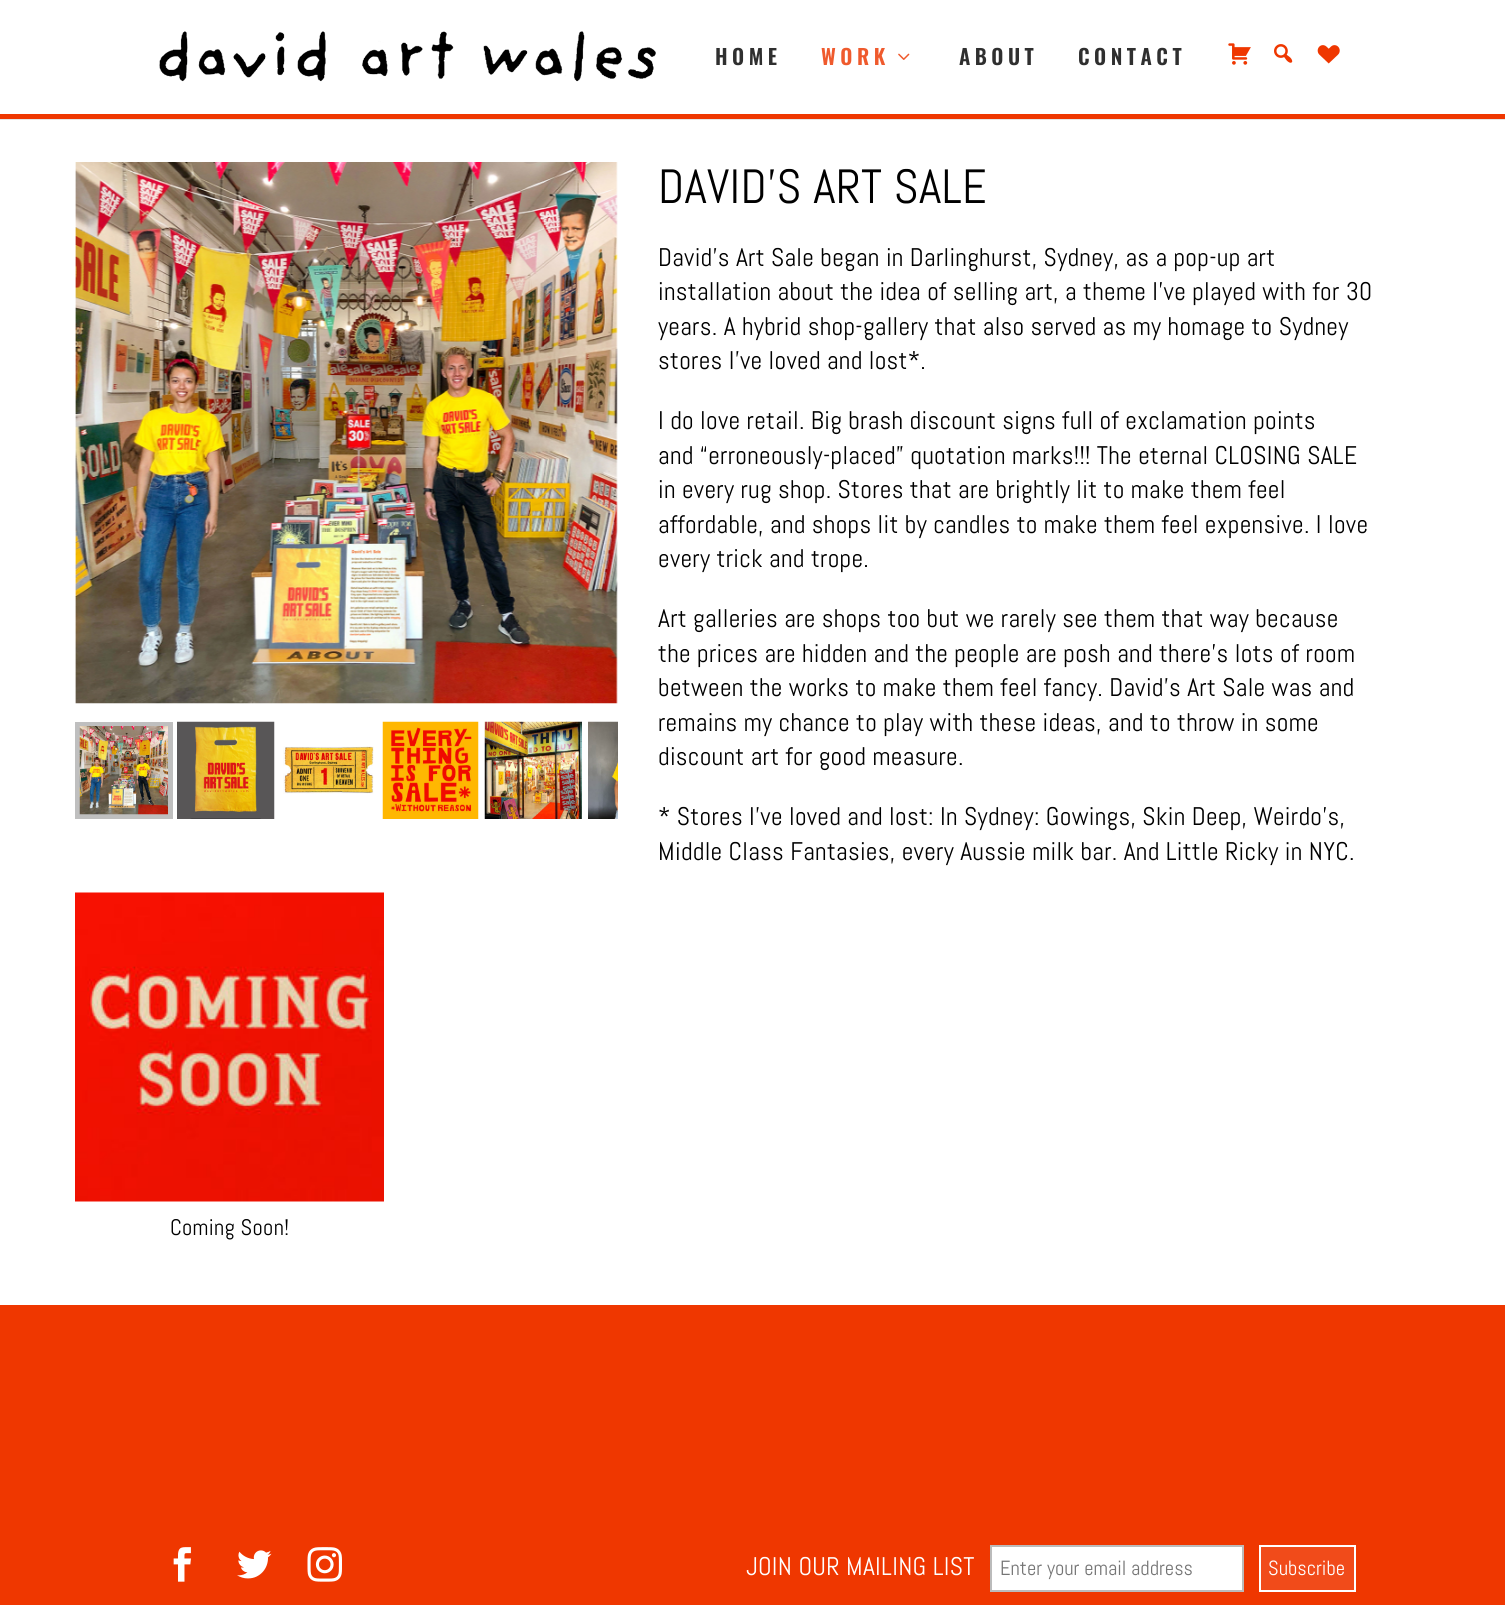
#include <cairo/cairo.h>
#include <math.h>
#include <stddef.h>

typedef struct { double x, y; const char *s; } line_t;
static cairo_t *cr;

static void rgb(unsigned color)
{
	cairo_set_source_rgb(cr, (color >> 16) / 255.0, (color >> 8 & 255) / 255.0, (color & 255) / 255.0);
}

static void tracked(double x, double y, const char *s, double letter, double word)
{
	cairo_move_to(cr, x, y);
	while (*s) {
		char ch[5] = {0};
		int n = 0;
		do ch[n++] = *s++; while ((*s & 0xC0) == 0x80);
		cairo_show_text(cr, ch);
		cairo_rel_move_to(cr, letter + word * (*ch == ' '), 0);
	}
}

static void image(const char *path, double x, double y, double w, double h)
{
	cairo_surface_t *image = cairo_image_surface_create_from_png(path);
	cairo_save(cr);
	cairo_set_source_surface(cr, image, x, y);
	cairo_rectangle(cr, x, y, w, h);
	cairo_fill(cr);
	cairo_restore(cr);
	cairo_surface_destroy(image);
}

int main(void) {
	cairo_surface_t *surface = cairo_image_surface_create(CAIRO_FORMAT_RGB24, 1505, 1605);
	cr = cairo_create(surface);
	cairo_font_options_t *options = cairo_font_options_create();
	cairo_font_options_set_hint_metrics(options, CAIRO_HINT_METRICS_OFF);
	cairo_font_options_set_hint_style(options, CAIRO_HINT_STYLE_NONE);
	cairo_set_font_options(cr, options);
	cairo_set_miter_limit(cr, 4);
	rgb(0xef3700);
	cairo_paint(cr);
	rgb(0xe6e6e6);
	cairo_rectangle(cr, 0, 119, 1505, 1);
	cairo_fill(cr);
	rgb(0xffffff);
	cairo_rectangle(cr, 0, 0, 1505, 114);
	cairo_fill(cr);
	image("img/1.png", 159, 31, 497, 51);
	image("img/2.png", 898, 53, 12, 7);
	image("img/3.png", 1228, 43, 23, 22);
	image("img/4.png", 1274, 44, 19, 19);
	image("img/5.png", 1317, 45, 23, 19);
	cairo_rectangle(cr, 0, 120, 1505, 1185);
	cairo_fill(cr);
	image("img/6.png", 75, 162, 543, 542);
	cairo_rectangle(cr, 77.5, 724.5, 93, 92);
	rgb(0xbfbfbf);
	cairo_set_line_width(cr, 5);
	cairo_stroke(cr);
	image("img/7.png", 79, 726, 89, 89);
	image("img/8.png", 177, 721, 98, 98);
	image("img/9.png", 283, 746, 91, 48);
	image("img/10.png", 382, 721, 97, 98);
	image("img/11.png", 484, 721, 98, 98);
	image("img/12.png", 588, 721, 30, 98);
	image("img/13.png", 75, 892, 309, 310);
	image("img/14.png", 173, 1547, 18, 35);
	image("img/15.png", 237, 1550, 35, 29);
	image("img/16.png", 307, 1547, 35, 35);
	rgb(0xffffff);
	cairo_rectangle(cr, 991, 1546, 252, 45);
	cairo_fill_preserve(cr);
	rgb(0xbbbbbb);
	cairo_set_line_width(cr, 2);
	cairo_stroke(cr);
	rgb(0xf14b1a);
	cairo_rectangle(cr, 1260, 1546, 95, 45);
	cairo_fill_preserve(cr);
	rgb(0xffffff);
	cairo_stroke(cr);
	cairo_select_font_face(cr, "Oswald SemiBold", CAIRO_FONT_SLANT_NORMAL, CAIRO_FONT_WEIGHT_NORMAL);
	cairo_set_font_size(cr, 21);
	rgb(0x2f2f2f);
	tracked(715, 65, "HOME", 4.5, 0);
	rgb(0xef5a2d);
	tracked(821, 65, "WORK", 4.5, 0);
	rgb(0x2f2f2f);
	tracked(959, 65, "ABOUT", 4.5, 0);
	tracked(1078, 65, "CONTACT", 4.5, 0);
	cairo_select_font_face(cr, "Abel", CAIRO_FONT_SLANT_NORMAL, CAIRO_FONT_WEIGHT_NORMAL);
	cairo_set_font_size(cr, 48);
	rgb(0x000000);
	tracked(658, 203, "DAVID’S ART SALE", 0.3, 0);
	cairo_set_font_size(cr, 25.5);
	{
		static const line_t items[] = {
			{658, 266, "David’s Art Sale began in Darlinghurst, Sydney, as a pop-up art"},
			{658, 300, "installation about the idea of selling art, a theme I’ve played with for 30"},
			{658, 335, "years. A hybrid shop-gallery that also served as my homage to Sydney"},
			{658, 369, "stores I’ve loved and lost*."},
			{658, 429, "I do love retail. Big brash discount signs full of exclamation points"},
			{658, 464, "and “erroneously-placed” quotation marks!!! The eternal CLOSING SALE"},
			{658, 498, "in every rug shop. Stores that are brightly lit to make them feel"},
			{658, 533, "affordable, and shops lit by candles to make them feel expensive. I love"},
			{658, 567, "every trick and trope."},
			{658, 627, "Art galleries are shops too but we rarely see them that way because"},
			{658, 662, "the prices are hidden and the people are posh and there’s lots of room"},
			{658, 696, "between the works to make them feel fancy. David’s Art Sale was and"},
			{658, 731, "remains my chance to play with these ideas, and to throw in some"},
			{658, 765, "discount art for good measure."},
			{658, 825, "* Stores I’ve loved and lost: In Sydney: Gowings, Skin Deep, Weirdo’s,"},
			{658, 860, "Middle Class Fantasies, every Aussie milk bar. And Little Ricky in NYC."},
		};
		for (size_t i = 0; i < sizeof items / sizeof *items; i++) {
			tracked(items[i].x, items[i].y, items[i].s, 0.3, 0);
		}
	}
	cairo_set_font_size(cr, 22.5);
	tracked(170, 1235, "Coming Soon!", 0.3, 0);
	cairo_set_font_size(cr, 25.5);
	rgb(0xffffff);
	tracked(746, 1575, "JOIN OUR MAILING LIST", 0.3, 0);
	cairo_set_font_size(cr, 20.5);
	rgb(0x757575);
	cairo_move_to(cr, 1000, 1575);
	cairo_show_text(cr, "Enter your email address");
	rgb(0xffffff);
	cairo_move_to(cr, 1268, 1575);
	cairo_show_text(cr, "Subscribe");
	cairo_surface_write_to_png(surface, "page.png");
	cairo_font_options_destroy(options);
	cairo_destroy(cr);
	cairo_surface_destroy(surface);
	return 0;
}
